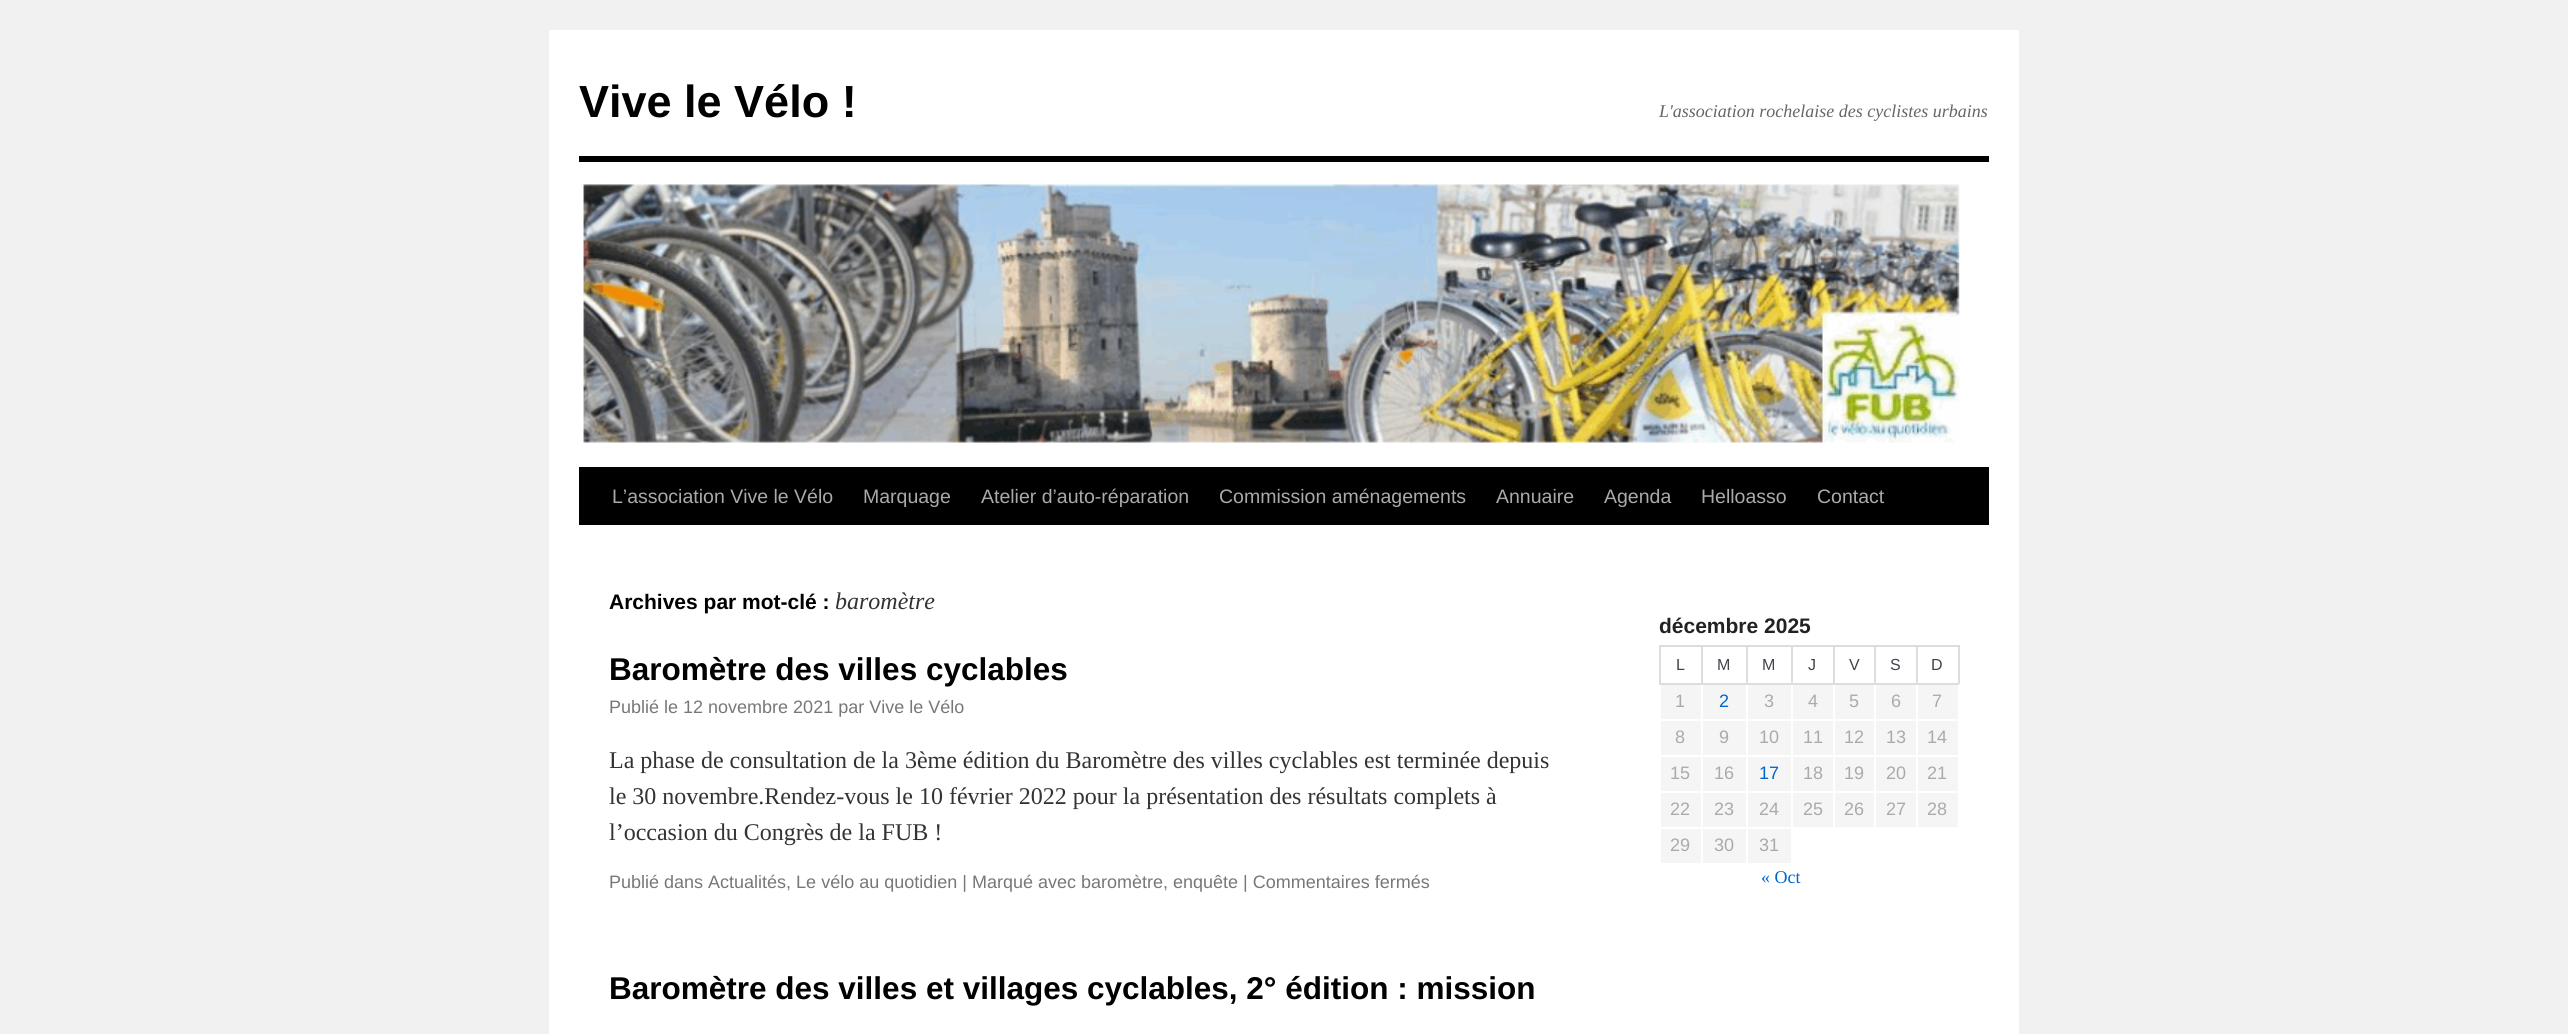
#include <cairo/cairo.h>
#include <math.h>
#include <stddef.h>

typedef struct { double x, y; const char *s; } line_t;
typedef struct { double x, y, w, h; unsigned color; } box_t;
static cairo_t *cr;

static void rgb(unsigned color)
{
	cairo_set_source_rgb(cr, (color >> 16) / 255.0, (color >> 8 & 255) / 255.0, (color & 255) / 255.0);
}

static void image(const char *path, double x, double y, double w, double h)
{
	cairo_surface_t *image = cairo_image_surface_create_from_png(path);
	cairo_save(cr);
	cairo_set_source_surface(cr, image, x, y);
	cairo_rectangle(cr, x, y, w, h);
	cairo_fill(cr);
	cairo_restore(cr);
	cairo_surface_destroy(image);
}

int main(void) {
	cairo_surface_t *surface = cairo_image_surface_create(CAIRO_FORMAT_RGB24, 2568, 1034);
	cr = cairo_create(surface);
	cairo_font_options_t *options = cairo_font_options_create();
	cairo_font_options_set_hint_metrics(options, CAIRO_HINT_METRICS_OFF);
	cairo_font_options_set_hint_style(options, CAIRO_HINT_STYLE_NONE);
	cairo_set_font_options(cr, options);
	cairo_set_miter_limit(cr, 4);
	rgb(0xf1f1f1);
	cairo_paint(cr);
	{
		static const box_t items[] = {
			{549, 30, 1470, 1004, 0xffffff},
			{579, 156, 1410, 6, 0x000000},
			{579, 467, 1410, 58, 0x000000},
		};
		for (size_t i = 0; i < sizeof items / sizeof *items; i++) {
			rgb(items[i].color);
			cairo_rectangle(cr, items[i].x, items[i].y, items[i].w, items[i].h);
			cairo_fill(cr);
		}
	}
	image("img/1.png", 583, 184, 1377, 259);
	{
		static const box_t items[] = {
			{1916, 645, 43, 2, 0xdddddd},
			{1958, 645, 2, 39, 0xdddddd},
			{1916, 683, 43, 2, 0xdddddd},
			{1916, 645, 2, 39, 0xdddddd},
			{1874, 645, 43, 2, 0xdddddd},
			{1874, 683, 43, 2, 0xdddddd},
			{1874, 645, 2, 39, 0xdddddd},
			{1833, 645, 42, 2, 0xdddddd},
			{1833, 683, 42, 2, 0xdddddd},
			{1833, 645, 2, 39, 0xdddddd},
			{1791, 645, 44, 2, 0xdddddd},
			{1791, 683, 44, 2, 0xdddddd},
			{1791, 645, 2, 39, 0xdddddd},
			{1746, 645, 47, 2, 0xdddddd},
			{1746, 683, 47, 2, 0xdddddd},
			{1746, 645, 2, 39, 0xdddddd},
			{1701, 645, 47, 2, 0xdddddd},
			{1701, 683, 47, 2, 0xdddddd},
			{1701, 645, 2, 39, 0xdddddd},
			{1659, 645, 44, 2, 0xdddddd},
			{1659, 683, 44, 2, 0xdddddd},
			{1659, 645, 2, 39, 0xdddddd},
			{1661, 685, 40, 34, 0xf5f5f5},
			{1703, 685, 43, 34, 0xf5f5f5},
			{1748, 685, 43, 34, 0xf5f5f5},
			{1793, 685, 40, 34, 0xf5f5f5},
			{1835, 685, 39, 34, 0xf5f5f5},
			{1876, 685, 40, 34, 0xf5f5f5},
			{1918, 685, 40, 34, 0xf5f5f5},
			{1661, 721, 40, 34, 0xf5f5f5},
			{1703, 721, 43, 34, 0xf5f5f5},
			{1748, 721, 43, 34, 0xf5f5f5},
			{1793, 721, 40, 34, 0xf5f5f5},
			{1835, 721, 39, 34, 0xf5f5f5},
			{1876, 721, 40, 34, 0xf5f5f5},
			{1918, 721, 40, 34, 0xf5f5f5},
			{1661, 757, 40, 34, 0xf5f5f5},
			{1703, 757, 43, 34, 0xf5f5f5},
			{1748, 757, 43, 34, 0xf5f5f5},
			{1793, 757, 40, 34, 0xf5f5f5},
			{1835, 757, 39, 34, 0xf5f5f5},
			{1876, 757, 40, 34, 0xf5f5f5},
			{1918, 757, 40, 34, 0xf5f5f5},
			{1661, 793, 40, 34, 0xf5f5f5},
			{1703, 793, 43, 34, 0xf5f5f5},
			{1748, 793, 43, 34, 0xf5f5f5},
			{1793, 793, 40, 34, 0xf5f5f5},
			{1835, 793, 39, 34, 0xf5f5f5},
			{1876, 793, 40, 34, 0xf5f5f5},
			{1918, 793, 40, 34, 0xf5f5f5},
			{1661, 829, 40, 34, 0xf5f5f5},
			{1703, 829, 43, 34, 0xf5f5f5},
			{1748, 829, 43, 34, 0xf5f5f5},
		};
		for (size_t i = 0; i < sizeof items / sizeof *items; i++) {
			rgb(items[i].color);
			cairo_rectangle(cr, items[i].x, items[i].y, items[i].w, items[i].h);
			cairo_fill(cr);
		}
	}
	cairo_select_font_face(cr, "Liberation Sans", CAIRO_FONT_SLANT_NORMAL, CAIRO_FONT_WEIGHT_BOLD);
	cairo_set_font_size(cr, 45);
	rgb(0x000000);
	cairo_move_to(cr, 579, 117);
	cairo_show_text(cr, "Vive le Vélo !");
	cairo_select_font_face(cr, "Liberation Serif", CAIRO_FONT_SLANT_ITALIC, CAIRO_FONT_WEIGHT_NORMAL);
	cairo_set_font_size(cr, 18);
	rgb(0x666666);
	cairo_move_to(cr, 1659, 117);
	cairo_show_text(cr, "L'association rochelaise des cyclistes urbains");
	cairo_select_font_face(cr, "Liberation Sans", CAIRO_FONT_SLANT_NORMAL, CAIRO_FONT_WEIGHT_NORMAL);
	cairo_set_font_size(cr, 19.5);
	rgb(0xaaaaaa);
	{
		static const line_t items[] = {
			{612, 503, "L’association Vive le Vélo"},
			{863, 503, "Marquage"},
			{981, 503, "Atelier d’auto-réparation"},
			{1219, 503, "Commission aménagements"},
			{1496, 503, "Annuaire"},
			{1604, 503, "Agenda"},
			{1701, 503, "Helloasso"},
			{1817, 503, "Contact"},
		};
		for (size_t i = 0; i < sizeof items / sizeof *items; i++) {
			cairo_move_to(cr, items[i].x, items[i].y);
			cairo_show_text(cr, items[i].s);
		}
	}
	cairo_select_font_face(cr, "Liberation Sans", CAIRO_FONT_SLANT_NORMAL, CAIRO_FONT_WEIGHT_BOLD);
	cairo_set_font_size(cr, 21);
	rgb(0x000000);
	cairo_move_to(cr, 609, 609);
	cairo_show_text(cr, "Archives par mot-clé :");
	cairo_select_font_face(cr, "Liberation Serif", CAIRO_FONT_SLANT_ITALIC, CAIRO_FONT_WEIGHT_NORMAL);
	cairo_set_font_size(cr, 24);
	rgb(0x333333);
	cairo_move_to(cr, 835, 609);
	cairo_show_text(cr, "baromètre");
	cairo_select_font_face(cr, "Liberation Sans", CAIRO_FONT_SLANT_NORMAL, CAIRO_FONT_WEIGHT_BOLD);
	cairo_set_font_size(cr, 31.5);
	rgb(0x000000);
	cairo_move_to(cr, 609, 680);
	cairo_show_text(cr, "Baromètre des villes cyclables");
	cairo_select_font_face(cr, "Liberation Sans", CAIRO_FONT_SLANT_NORMAL, CAIRO_FONT_WEIGHT_NORMAL);
	cairo_set_font_size(cr, 18);
	rgb(0x777777);
	cairo_move_to(cr, 609, 713);
	cairo_show_text(cr, "Publié le 12 novembre 2021 par Vive le Vélo");
	cairo_select_font_face(cr, "Liberation Serif", CAIRO_FONT_SLANT_NORMAL, CAIRO_FONT_WEIGHT_NORMAL);
	cairo_set_font_size(cr, 24);
	rgb(0x333333);
	{
		static const line_t items[] = {
			{609, 768, "La phase de consultation de la 3ème édition du Baromètre des villes cyclables est terminée depuis"},
			{609, 804, "le 30 novembre.Rendez-vous le 10 février 2022 pour la présentation des résultats complets à"},
			{609, 840, "l’occasion du Congrès de la FUB !"},
		};
		for (size_t i = 0; i < sizeof items / sizeof *items; i++) {
			cairo_move_to(cr, items[i].x, items[i].y);
			cairo_show_text(cr, items[i].s);
		}
	}
	cairo_select_font_face(cr, "Liberation Sans", CAIRO_FONT_SLANT_NORMAL, CAIRO_FONT_WEIGHT_NORMAL);
	cairo_set_font_size(cr, 18);
	rgb(0x777777);
	cairo_move_to(cr, 609, 888);
	cairo_show_text(cr, "Publié dans Actualités, Le vélo au quotidien | Marqué avec baromètre, enquête | Commentaires fermés");
	cairo_select_font_face(cr, "Liberation Sans", CAIRO_FONT_SLANT_NORMAL, CAIRO_FONT_WEIGHT_BOLD);
	cairo_set_font_size(cr, 31.5);
	rgb(0x000000);
	cairo_move_to(cr, 609, 999);
	cairo_show_text(cr, "Baromètre des villes et villages cyclables, 2° édition : mission");
	cairo_set_font_size(cr, 21);
	rgb(0x222222);
	cairo_move_to(cr, 1659, 633);
	cairo_show_text(cr, "décembre 2025");
	cairo_select_font_face(cr, "Liberation Sans", CAIRO_FONT_SLANT_NORMAL, CAIRO_FONT_WEIGHT_NORMAL);
	cairo_set_font_size(cr, 16);
	rgb(0x40464d);
	{
		static const line_t items[] = {
			{1676, 670, "L"},
			{1717, 670, "M"},
			{1762, 670, "M"},
			{1808, 670, "J"},
			{1849, 670, "V"},
			{1890, 670, "S"},
			{1931, 670, "D"},
		};
		for (size_t i = 0; i < sizeof items / sizeof *items; i++) {
			cairo_move_to(cr, items[i].x, items[i].y);
			cairo_show_text(cr, items[i].s);
		}
	}
	cairo_set_font_size(cr, 18);
	rgb(0xaaaaaa);
	cairo_move_to(cr, 1675, 707);
	cairo_show_text(cr, "1");
	rgb(0x0066cc);
	cairo_move_to(cr, 1719, 707);
	cairo_show_text(cr, "2");
	rgb(0xaaaaaa);
	{
		static const line_t items[] = {
			{1764, 707, "3"},
			{1808, 707, "4"},
			{1849, 707, "5"},
			{1891, 707, "6"},
			{1932, 707, "7"},
			{1675, 743, "8"},
			{1719, 743, "9"},
			{1759, 743, "10"},
			{1803, 743, "11"},
			{1844, 743, "12"},
			{1886, 743, "13"},
			{1927, 743, "14"},
			{1670, 779, "15"},
			{1714, 779, "16"},
		};
		for (size_t i = 0; i < sizeof items / sizeof *items; i++) {
			cairo_move_to(cr, items[i].x, items[i].y);
			cairo_show_text(cr, items[i].s);
		}
	}
	rgb(0x0066cc);
	cairo_move_to(cr, 1759, 779);
	cairo_show_text(cr, "17");
	rgb(0xaaaaaa);
	{
		static const line_t items[] = {
			{1803, 779, "18"},
			{1844, 779, "19"},
			{1886, 779, "20"},
			{1927, 779, "21"},
			{1670, 815, "22"},
			{1714, 815, "23"},
			{1759, 815, "24"},
			{1803, 815, "25"},
			{1844, 815, "26"},
			{1886, 815, "27"},
			{1927, 815, "28"},
			{1670, 851, "29"},
			{1714, 851, "30"},
			{1759, 851, "31"},
		};
		for (size_t i = 0; i < sizeof items / sizeof *items; i++) {
			cairo_move_to(cr, items[i].x, items[i].y);
			cairo_show_text(cr, items[i].s);
		}
	}
	cairo_select_font_face(cr, "Liberation Serif", CAIRO_FONT_SLANT_NORMAL, CAIRO_FONT_WEIGHT_NORMAL);
	rgb(0x0066cc);
	cairo_move_to(cr, 1761, 883);
	cairo_show_text(cr, "« Oct");
	cairo_surface_write_to_png(surface, "page.png");
	cairo_font_options_destroy(options);
	cairo_destroy(cr);
	cairo_surface_destroy(surface);
	return 0;
}
